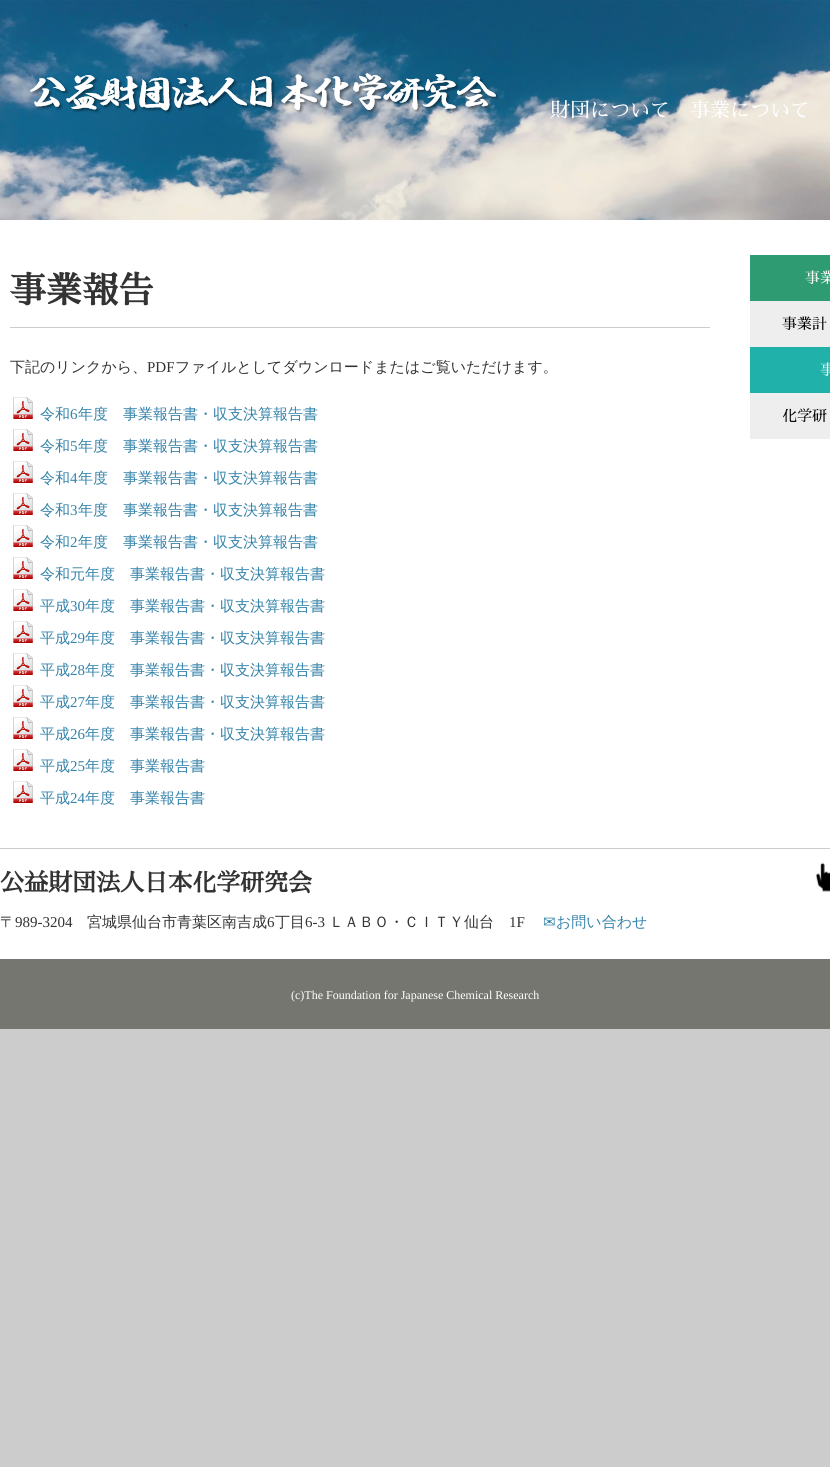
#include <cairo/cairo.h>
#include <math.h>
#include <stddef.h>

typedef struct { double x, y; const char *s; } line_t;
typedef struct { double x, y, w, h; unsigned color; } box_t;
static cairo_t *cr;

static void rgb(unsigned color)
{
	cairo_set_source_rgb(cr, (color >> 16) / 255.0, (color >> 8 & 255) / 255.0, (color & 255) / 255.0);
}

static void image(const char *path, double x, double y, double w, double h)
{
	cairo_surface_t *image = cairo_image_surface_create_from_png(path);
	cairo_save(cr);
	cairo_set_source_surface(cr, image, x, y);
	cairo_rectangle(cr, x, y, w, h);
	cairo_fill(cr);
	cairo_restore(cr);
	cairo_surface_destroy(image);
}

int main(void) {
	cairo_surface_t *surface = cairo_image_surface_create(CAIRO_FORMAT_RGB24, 830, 1467);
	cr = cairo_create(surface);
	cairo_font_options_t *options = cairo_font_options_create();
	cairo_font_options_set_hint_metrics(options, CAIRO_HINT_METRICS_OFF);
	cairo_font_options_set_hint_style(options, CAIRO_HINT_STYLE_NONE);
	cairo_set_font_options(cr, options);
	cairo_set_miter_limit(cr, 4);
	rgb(0xcccccc);
	cairo_paint(cr);
	image("img/1.png", 0, 0, 830, 220);
	image("img/2.png", 30, 73, 469, 41);
	rgb(0xffffff);
	cairo_rectangle(cr, 0, 220, 830, 628);
	cairo_fill(cr);
	rgb(0xcccccc);
	cairo_rectangle(cr, 10, 327, 700, 1);
	cairo_fill(cr);
	image("img/3.png", 13, 397, 20, 22);
	image("img/3.png", 13, 429, 20, 22);
	image("img/3.png", 13, 461, 20, 22);
	image("img/3.png", 13, 493, 20, 22);
	image("img/3.png", 13, 525, 20, 22);
	image("img/3.png", 13, 557, 20, 22);
	image("img/3.png", 13, 589, 20, 22);
	image("img/3.png", 13, 621, 20, 22);
	image("img/3.png", 13, 653, 20, 22);
	image("img/3.png", 13, 685, 20, 22);
	image("img/3.png", 13, 717, 20, 22);
	image("img/3.png", 13, 749, 20, 22);
	image("img/3.png", 13, 781, 20, 22);
	{
		static const box_t items[] = {
			{750, 301, 80, 138, 0xeeeeee},
			{750, 255, 80, 46, 0x2e9b72},
			{750, 347, 80, 46, 0x20b2aa},
			{0, 849, 830, 110, 0xffffff},
		};
		for (size_t i = 0; i < sizeof items / sizeof *items; i++) {
			rgb(items[i].color);
			cairo_rectangle(cr, items[i].x, items[i].y, items[i].w, items[i].h);
			cairo_fill(cr);
		}
	}
	image("img/4.png", 815, 862, 15, 30);
	rgb(0x767671);
	cairo_rectangle(cr, 0, 959, 830, 70);
	cairo_fill(cr);
	cairo_select_font_face(cr, "Sawarabi Mincho", CAIRO_FONT_SLANT_NORMAL, CAIRO_FONT_WEIGHT_NORMAL);
	cairo_set_font_size(cr, 20);
	rgb(0xffffff);
	cairo_move_to(cr, 550, 117);
	cairo_show_text(cr, "財団について");
	cairo_move_to(cr, 690, 117);
	cairo_show_text(cr, "事業について");
	cairo_select_font_face(cr, "Sawarabi Mincho", CAIRO_FONT_SLANT_NORMAL, CAIRO_FONT_WEIGHT_BOLD);
	cairo_set_font_size(cr, 36);
	rgb(0x333333);
	cairo_move_to(cr, 10, 303);
	cairo_show_text(cr, "事業報告");
	cairo_select_font_face(cr, "WenQuanYi Zen Hei Medium", CAIRO_FONT_SLANT_NORMAL, CAIRO_FONT_WEIGHT_NORMAL);
	cairo_set_font_size(cr, 15);
	cairo_move_to(cr, 10, 372);
	cairo_show_text(cr, "下記のリンクから、");
	cairo_select_font_face(cr, "Liberation Serif", CAIRO_FONT_SLANT_NORMAL, CAIRO_FONT_WEIGHT_NORMAL);
	cairo_move_to(cr, 147, 372);
	cairo_show_text(cr, "PDF");
	cairo_select_font_face(cr, "WenQuanYi Zen Hei Medium", CAIRO_FONT_SLANT_NORMAL, CAIRO_FONT_WEIGHT_NORMAL);
	cairo_move_to(cr, 175, 372);
	cairo_show_text(cr, "ファイルとしてダウンロードまたはご覧いただけます。");
	rgb(0x3583aa);
	cairo_move_to(cr, 40, 419);
	cairo_show_text(cr, "令和");
	cairo_select_font_face(cr, "Liberation Serif", CAIRO_FONT_SLANT_NORMAL, CAIRO_FONT_WEIGHT_NORMAL);
	cairo_move_to(cr, 70, 419);
	cairo_show_text(cr, "6");
	cairo_select_font_face(cr, "WenQuanYi Zen Hei Medium", CAIRO_FONT_SLANT_NORMAL, CAIRO_FONT_WEIGHT_NORMAL);
	cairo_move_to(cr, 78, 419);
	cairo_show_text(cr, "年度　事業報告書・収支決算報告書");
	cairo_move_to(cr, 40, 451);
	cairo_show_text(cr, "令和");
	cairo_select_font_face(cr, "Liberation Serif", CAIRO_FONT_SLANT_NORMAL, CAIRO_FONT_WEIGHT_NORMAL);
	cairo_move_to(cr, 70, 451);
	cairo_show_text(cr, "5");
	cairo_select_font_face(cr, "WenQuanYi Zen Hei Medium", CAIRO_FONT_SLANT_NORMAL, CAIRO_FONT_WEIGHT_NORMAL);
	cairo_move_to(cr, 78, 451);
	cairo_show_text(cr, "年度　事業報告書・収支決算報告書");
	cairo_move_to(cr, 40, 483);
	cairo_show_text(cr, "令和");
	cairo_select_font_face(cr, "Liberation Serif", CAIRO_FONT_SLANT_NORMAL, CAIRO_FONT_WEIGHT_NORMAL);
	cairo_move_to(cr, 70, 483);
	cairo_show_text(cr, "4");
	cairo_select_font_face(cr, "WenQuanYi Zen Hei Medium", CAIRO_FONT_SLANT_NORMAL, CAIRO_FONT_WEIGHT_NORMAL);
	cairo_move_to(cr, 78, 483);
	cairo_show_text(cr, "年度　事業報告書・収支決算報告書");
	cairo_move_to(cr, 40, 515);
	cairo_show_text(cr, "令和");
	cairo_select_font_face(cr, "Liberation Serif", CAIRO_FONT_SLANT_NORMAL, CAIRO_FONT_WEIGHT_NORMAL);
	cairo_move_to(cr, 70, 515);
	cairo_show_text(cr, "3");
	cairo_select_font_face(cr, "WenQuanYi Zen Hei Medium", CAIRO_FONT_SLANT_NORMAL, CAIRO_FONT_WEIGHT_NORMAL);
	cairo_move_to(cr, 78, 515);
	cairo_show_text(cr, "年度　事業報告書・収支決算報告書");
	cairo_move_to(cr, 40, 547);
	cairo_show_text(cr, "令和");
	cairo_select_font_face(cr, "Liberation Serif", CAIRO_FONT_SLANT_NORMAL, CAIRO_FONT_WEIGHT_NORMAL);
	cairo_move_to(cr, 70, 547);
	cairo_show_text(cr, "2");
	cairo_select_font_face(cr, "WenQuanYi Zen Hei Medium", CAIRO_FONT_SLANT_NORMAL, CAIRO_FONT_WEIGHT_NORMAL);
	{
		static const line_t items[] = {
			{78, 547, "年度　事業報告書・収支決算報告書"},
			{40, 579, "令和元年度　事業報告書・収支決算報告書"},
			{40, 611, "平成"},
		};
		for (size_t i = 0; i < sizeof items / sizeof *items; i++) {
			cairo_move_to(cr, items[i].x, items[i].y);
			cairo_show_text(cr, items[i].s);
		}
	}
	cairo_select_font_face(cr, "Liberation Serif", CAIRO_FONT_SLANT_NORMAL, CAIRO_FONT_WEIGHT_NORMAL);
	cairo_move_to(cr, 70, 611);
	cairo_show_text(cr, "30");
	cairo_select_font_face(cr, "WenQuanYi Zen Hei Medium", CAIRO_FONT_SLANT_NORMAL, CAIRO_FONT_WEIGHT_NORMAL);
	cairo_move_to(cr, 85, 611);
	cairo_show_text(cr, "年度　事業報告書・収支決算報告書");
	cairo_move_to(cr, 40, 643);
	cairo_show_text(cr, "平成");
	cairo_select_font_face(cr, "Liberation Serif", CAIRO_FONT_SLANT_NORMAL, CAIRO_FONT_WEIGHT_NORMAL);
	cairo_move_to(cr, 70, 643);
	cairo_show_text(cr, "29");
	cairo_select_font_face(cr, "WenQuanYi Zen Hei Medium", CAIRO_FONT_SLANT_NORMAL, CAIRO_FONT_WEIGHT_NORMAL);
	cairo_move_to(cr, 85, 643);
	cairo_show_text(cr, "年度　事業報告書・収支決算報告書");
	cairo_move_to(cr, 40, 675);
	cairo_show_text(cr, "平成");
	cairo_select_font_face(cr, "Liberation Serif", CAIRO_FONT_SLANT_NORMAL, CAIRO_FONT_WEIGHT_NORMAL);
	cairo_move_to(cr, 70, 675);
	cairo_show_text(cr, "28");
	cairo_select_font_face(cr, "WenQuanYi Zen Hei Medium", CAIRO_FONT_SLANT_NORMAL, CAIRO_FONT_WEIGHT_NORMAL);
	cairo_move_to(cr, 85, 675);
	cairo_show_text(cr, "年度　事業報告書・収支決算報告書");
	cairo_move_to(cr, 40, 707);
	cairo_show_text(cr, "平成");
	cairo_select_font_face(cr, "Liberation Serif", CAIRO_FONT_SLANT_NORMAL, CAIRO_FONT_WEIGHT_NORMAL);
	cairo_move_to(cr, 70, 707);
	cairo_show_text(cr, "27");
	cairo_select_font_face(cr, "WenQuanYi Zen Hei Medium", CAIRO_FONT_SLANT_NORMAL, CAIRO_FONT_WEIGHT_NORMAL);
	cairo_move_to(cr, 85, 707);
	cairo_show_text(cr, "年度　事業報告書・収支決算報告書");
	cairo_move_to(cr, 40, 739);
	cairo_show_text(cr, "平成");
	cairo_select_font_face(cr, "Liberation Serif", CAIRO_FONT_SLANT_NORMAL, CAIRO_FONT_WEIGHT_NORMAL);
	cairo_move_to(cr, 70, 739);
	cairo_show_text(cr, "26");
	cairo_select_font_face(cr, "WenQuanYi Zen Hei Medium", CAIRO_FONT_SLANT_NORMAL, CAIRO_FONT_WEIGHT_NORMAL);
	cairo_move_to(cr, 85, 739);
	cairo_show_text(cr, "年度　事業報告書・収支決算報告書");
	cairo_move_to(cr, 40, 771);
	cairo_show_text(cr, "平成");
	cairo_select_font_face(cr, "Liberation Serif", CAIRO_FONT_SLANT_NORMAL, CAIRO_FONT_WEIGHT_NORMAL);
	cairo_move_to(cr, 70, 771);
	cairo_show_text(cr, "25");
	cairo_select_font_face(cr, "WenQuanYi Zen Hei Medium", CAIRO_FONT_SLANT_NORMAL, CAIRO_FONT_WEIGHT_NORMAL);
	cairo_move_to(cr, 85, 771);
	cairo_show_text(cr, "年度　事業報告書");
	cairo_move_to(cr, 40, 803);
	cairo_show_text(cr, "平成");
	cairo_select_font_face(cr, "Liberation Serif", CAIRO_FONT_SLANT_NORMAL, CAIRO_FONT_WEIGHT_NORMAL);
	cairo_move_to(cr, 70, 803);
	cairo_show_text(cr, "24");
	cairo_select_font_face(cr, "WenQuanYi Zen Hei Medium", CAIRO_FONT_SLANT_NORMAL, CAIRO_FONT_WEIGHT_NORMAL);
	cairo_move_to(cr, 85, 803);
	cairo_show_text(cr, "年度　事業報告書");
	cairo_select_font_face(cr, "Sawarabi Mincho", CAIRO_FONT_SLANT_NORMAL, CAIRO_FONT_WEIGHT_NORMAL);
	rgb(0xffffff);
	cairo_move_to(cr, 805, 283);
	cairo_show_text(cr, "事業");
	rgb(0x000000);
	cairo_move_to(cr, 782, 329);
	cairo_show_text(cr, "事業計");
	rgb(0xffffff);
	cairo_move_to(cr, 820, 375);
	cairo_show_text(cr, "事");
	rgb(0x000000);
	cairo_move_to(cr, 782, 421);
	cairo_show_text(cr, "化学研");
	cairo_select_font_face(cr, "Sawarabi Mincho", CAIRO_FONT_SLANT_NORMAL, CAIRO_FONT_WEIGHT_BOLD);
	cairo_set_font_size(cr, 24);
	rgb(0x333333);
	cairo_move_to(cr, 0, 891);
	cairo_show_text(cr, "公益財団法人日本化学研究会");
	cairo_select_font_face(cr, "WenQuanYi Zen Hei Medium", CAIRO_FONT_SLANT_NORMAL, CAIRO_FONT_WEIGHT_NORMAL);
	cairo_set_font_size(cr, 15);
	cairo_move_to(cr, 0, 927);
	cairo_show_text(cr, "〒");
	cairo_select_font_face(cr, "Liberation Serif", CAIRO_FONT_SLANT_NORMAL, CAIRO_FONT_WEIGHT_NORMAL);
	cairo_move_to(cr, 15, 927);
	cairo_show_text(cr, "989-3204");
	cairo_select_font_face(cr, "WenQuanYi Zen Hei Medium", CAIRO_FONT_SLANT_NORMAL, CAIRO_FONT_WEIGHT_NORMAL);
	cairo_move_to(cr, 87, 927);
	cairo_show_text(cr, "宮城県仙台市青葉区南吉成");
	cairo_select_font_face(cr, "Liberation Serif", CAIRO_FONT_SLANT_NORMAL, CAIRO_FONT_WEIGHT_NORMAL);
	cairo_move_to(cr, 267, 927);
	cairo_show_text(cr, "6");
	cairo_select_font_face(cr, "WenQuanYi Zen Hei Medium", CAIRO_FONT_SLANT_NORMAL, CAIRO_FONT_WEIGHT_NORMAL);
	cairo_move_to(cr, 275, 927);
	cairo_show_text(cr, "丁目");
	cairo_select_font_face(cr, "Liberation Serif", CAIRO_FONT_SLANT_NORMAL, CAIRO_FONT_WEIGHT_NORMAL);
	cairo_move_to(cr, 305, 927);
	cairo_show_text(cr, "6-3");
	cairo_select_font_face(cr, "WenQuanYi Zen Hei Medium", CAIRO_FONT_SLANT_NORMAL, CAIRO_FONT_WEIGHT_NORMAL);
	cairo_move_to(cr, 329, 927);
	cairo_show_text(cr, "ＬＡＢＯ・ＣＩＴＹ仙台");
	cairo_select_font_face(cr, "Liberation Serif", CAIRO_FONT_SLANT_NORMAL, CAIRO_FONT_WEIGHT_NORMAL);
	cairo_move_to(cr, 509, 927);
	cairo_show_text(cr, "1F");
	cairo_select_font_face(cr, "DejaVu Sans", CAIRO_FONT_SLANT_NORMAL, CAIRO_FONT_WEIGHT_NORMAL);
	rgb(0x3583aa);
	cairo_move_to(cr, 543, 927);
	cairo_show_text(cr, "✉");
	cairo_select_font_face(cr, "WenQuanYi Zen Hei Medium", CAIRO_FONT_SLANT_NORMAL, CAIRO_FONT_WEIGHT_NORMAL);
	cairo_move_to(cr, 556, 927);
	cairo_show_text(cr, "お問い合わせ");
	cairo_select_font_face(cr, "Liberation Serif", CAIRO_FONT_SLANT_NORMAL, CAIRO_FONT_WEIGHT_NORMAL);
	cairo_set_font_size(cr, 12);
	rgb(0xffffff);
	cairo_move_to(cr, 291, 999);
	cairo_show_text(cr, "(c)The Foundation for Japanese Chemical Research");
	cairo_surface_write_to_png(surface, "page.png");
	cairo_font_options_destroy(options);
	cairo_destroy(cr);
	cairo_surface_destroy(surface);
	return 0;
}
